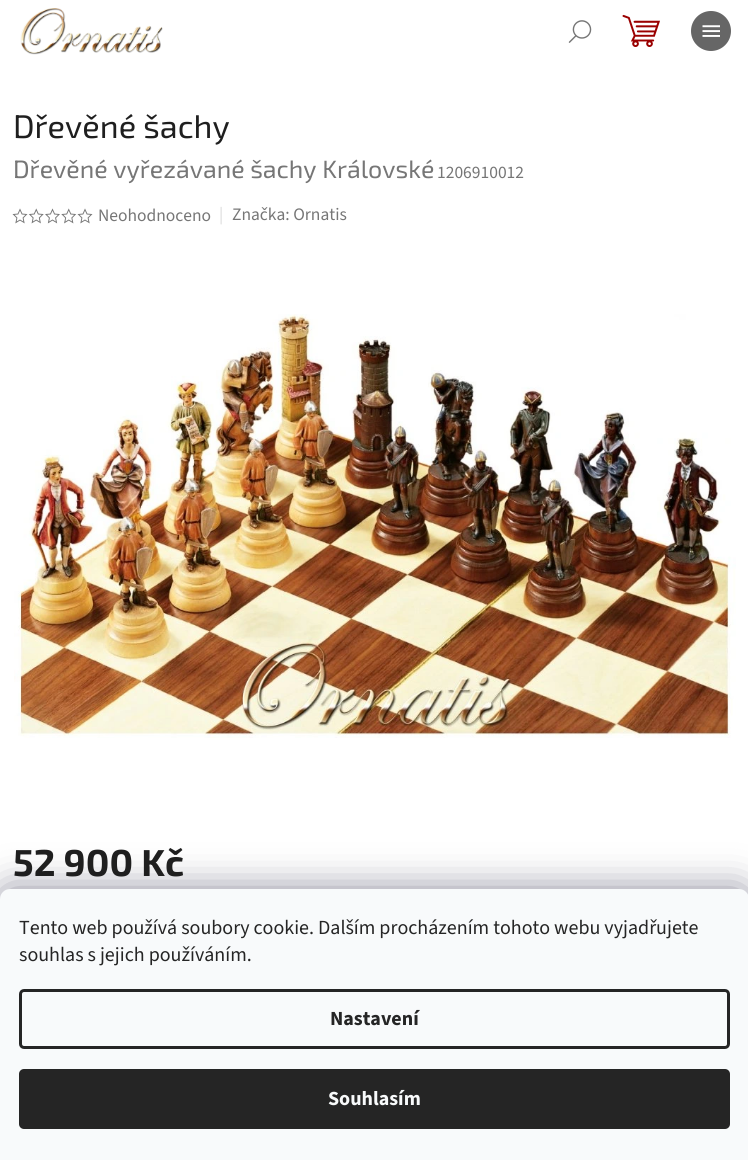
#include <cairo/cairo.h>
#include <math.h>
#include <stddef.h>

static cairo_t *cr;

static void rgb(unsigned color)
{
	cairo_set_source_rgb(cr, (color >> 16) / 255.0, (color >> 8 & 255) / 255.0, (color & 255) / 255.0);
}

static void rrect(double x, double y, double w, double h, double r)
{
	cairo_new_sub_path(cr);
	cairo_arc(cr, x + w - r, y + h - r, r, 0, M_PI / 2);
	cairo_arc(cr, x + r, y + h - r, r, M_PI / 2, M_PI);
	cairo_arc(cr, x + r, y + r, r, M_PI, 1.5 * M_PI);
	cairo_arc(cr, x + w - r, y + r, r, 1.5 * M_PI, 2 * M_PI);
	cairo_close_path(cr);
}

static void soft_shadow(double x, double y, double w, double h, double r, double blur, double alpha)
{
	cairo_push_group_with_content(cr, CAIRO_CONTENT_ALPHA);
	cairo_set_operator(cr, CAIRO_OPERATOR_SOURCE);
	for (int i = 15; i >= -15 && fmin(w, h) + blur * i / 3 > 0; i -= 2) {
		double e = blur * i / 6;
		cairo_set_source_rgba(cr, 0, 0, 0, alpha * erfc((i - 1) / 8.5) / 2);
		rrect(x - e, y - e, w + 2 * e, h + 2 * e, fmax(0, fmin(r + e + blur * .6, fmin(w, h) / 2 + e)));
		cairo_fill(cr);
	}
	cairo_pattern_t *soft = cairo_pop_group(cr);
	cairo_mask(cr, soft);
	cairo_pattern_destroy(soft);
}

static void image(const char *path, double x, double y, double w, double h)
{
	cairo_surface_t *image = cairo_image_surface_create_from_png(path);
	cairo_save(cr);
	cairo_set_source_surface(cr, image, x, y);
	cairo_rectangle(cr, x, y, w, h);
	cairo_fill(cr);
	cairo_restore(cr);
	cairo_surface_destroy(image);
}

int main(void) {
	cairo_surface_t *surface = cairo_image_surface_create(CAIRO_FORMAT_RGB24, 748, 1160);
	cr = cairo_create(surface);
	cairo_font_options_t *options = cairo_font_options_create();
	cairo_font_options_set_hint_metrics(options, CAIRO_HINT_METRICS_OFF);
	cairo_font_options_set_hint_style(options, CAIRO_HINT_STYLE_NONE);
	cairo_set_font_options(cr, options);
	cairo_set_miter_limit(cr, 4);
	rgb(0xffffff);
	cairo_paint(cr);
	image("img/1.png", 20, 8, 143, 47);
	image("img/2.png", 622, 14, 38, 33);
	image("img/3.png", 568, 20, 24, 23);
	rgb(0x666666);
	cairo_arc(cr, 711, 31, 20, 0, 2 * M_PI);
	cairo_fill(cr);
	image("img/4.png", 702, 25, 18, 12);
	image("img/5.png", 12, 208, 16, 16);
	image("img/6.png", 28, 208, 16, 16);
	image("img/7.png", 45, 208, 15, 16);
	image("img/8.png", 61, 208, 16, 16);
	image("img/5.png", 77, 208, 16, 16);
	image("img/9.png", 14, 314, 722, 424);
	rgb(0x1b1939);
	soft_shadow(0, 889, 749, 271, 10, 19, 0.5);
	rgb(0xf8fafb);
	cairo_new_path(cr);
	cairo_move_to(cr, 10, 889);
	cairo_line_to(cr, 739, 889);
	cairo_curve_to(cr, 744.5, 889, 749, 893.5, 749, 899);
	cairo_line_to(cr, 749, 1160);
	cairo_line_to(cr, 0, 1160);
	cairo_line_to(cr, 0, 899);
	cairo_curve_to(cr, 0, 893.5, 4.5, 889, 10, 889);
	cairo_close_path(cr);
	cairo_fill(cr);
	rrect(20.5, 990.5, 708, 57, 3.5);
	rgb(0x252525);
	cairo_set_line_width(cr, 3);
	cairo_stroke(cr);
	rrect(19, 1069, 711, 60, 5);
	cairo_fill(cr);
	cairo_select_font_face(cr, "Exo 2", CAIRO_FONT_SLANT_NORMAL, CAIRO_FONT_WEIGHT_NORMAL);
	cairo_set_font_size(cr, 32.5);
	rgb(0x1f1f1f);
	cairo_move_to(cr, 13, 138);
	cairo_show_text(cr, "Dřevěné šachy");
	cairo_set_font_size(cr, 25);
	rgb(0x767676);
	cairo_move_to(cr, 13, 178);
	cairo_show_text(cr, "Dřevěné vyřezávané šachy Královské");
	cairo_select_font_face(cr, "Source Sans 3", CAIRO_FONT_SLANT_NORMAL, CAIRO_FONT_WEIGHT_NORMAL);
	cairo_set_font_size(cr, 17.5);
	cairo_move_to(cr, 437, 178);
	cairo_show_text(cr, "1206910012");
	cairo_move_to(cr, 98, 221);
	cairo_show_text(cr, "Neohodnoceno");
	rgb(0xdadada);
	cairo_move_to(cr, 219, 220);
	cairo_show_text(cr, "|");
	rgb(0x767676);
	cairo_move_to(cr, 232, 220);
	cairo_show_text(cr, "Značka: Ornatis");
	cairo_select_font_face(cr, "Exo 2", CAIRO_FONT_SLANT_NORMAL, CAIRO_FONT_WEIGHT_BOLD);
	cairo_set_font_size(cr, 37.5);
	rgb(0x1f1f1f);
	cairo_move_to(cr, 13, 876);
	cairo_show_text(cr, "52 900 Kč");
	cairo_select_font_face(cr, "Source Sans 3", CAIRO_FONT_SLANT_NORMAL, CAIRO_FONT_WEIGHT_NORMAL);
	cairo_set_font_size(cr, 20);
	rgb(0x252525);
	cairo_move_to(cr, 19, 934);
	cairo_show_text(cr, "Tento web používá soubory cookie. Dalším procházením tohoto webu vyjadřujete");
	cairo_move_to(cr, 19, 961);
	cairo_show_text(cr, "souhlas s jejich používáním.");
	cairo_select_font_face(cr, "Source Sans 3", CAIRO_FONT_SLANT_NORMAL, CAIRO_FONT_WEIGHT_BOLD);
	cairo_move_to(cr, 330, 1025);
	cairo_show_text(cr, "Nastavení");
	rgb(0xf8fafb);
	cairo_move_to(cr, 328, 1105);
	cairo_show_text(cr, "Souhlasím");
	cairo_surface_write_to_png(surface, "page.png");
	cairo_font_options_destroy(options);
	cairo_destroy(cr);
	cairo_surface_destroy(surface);
	return 0;
}
